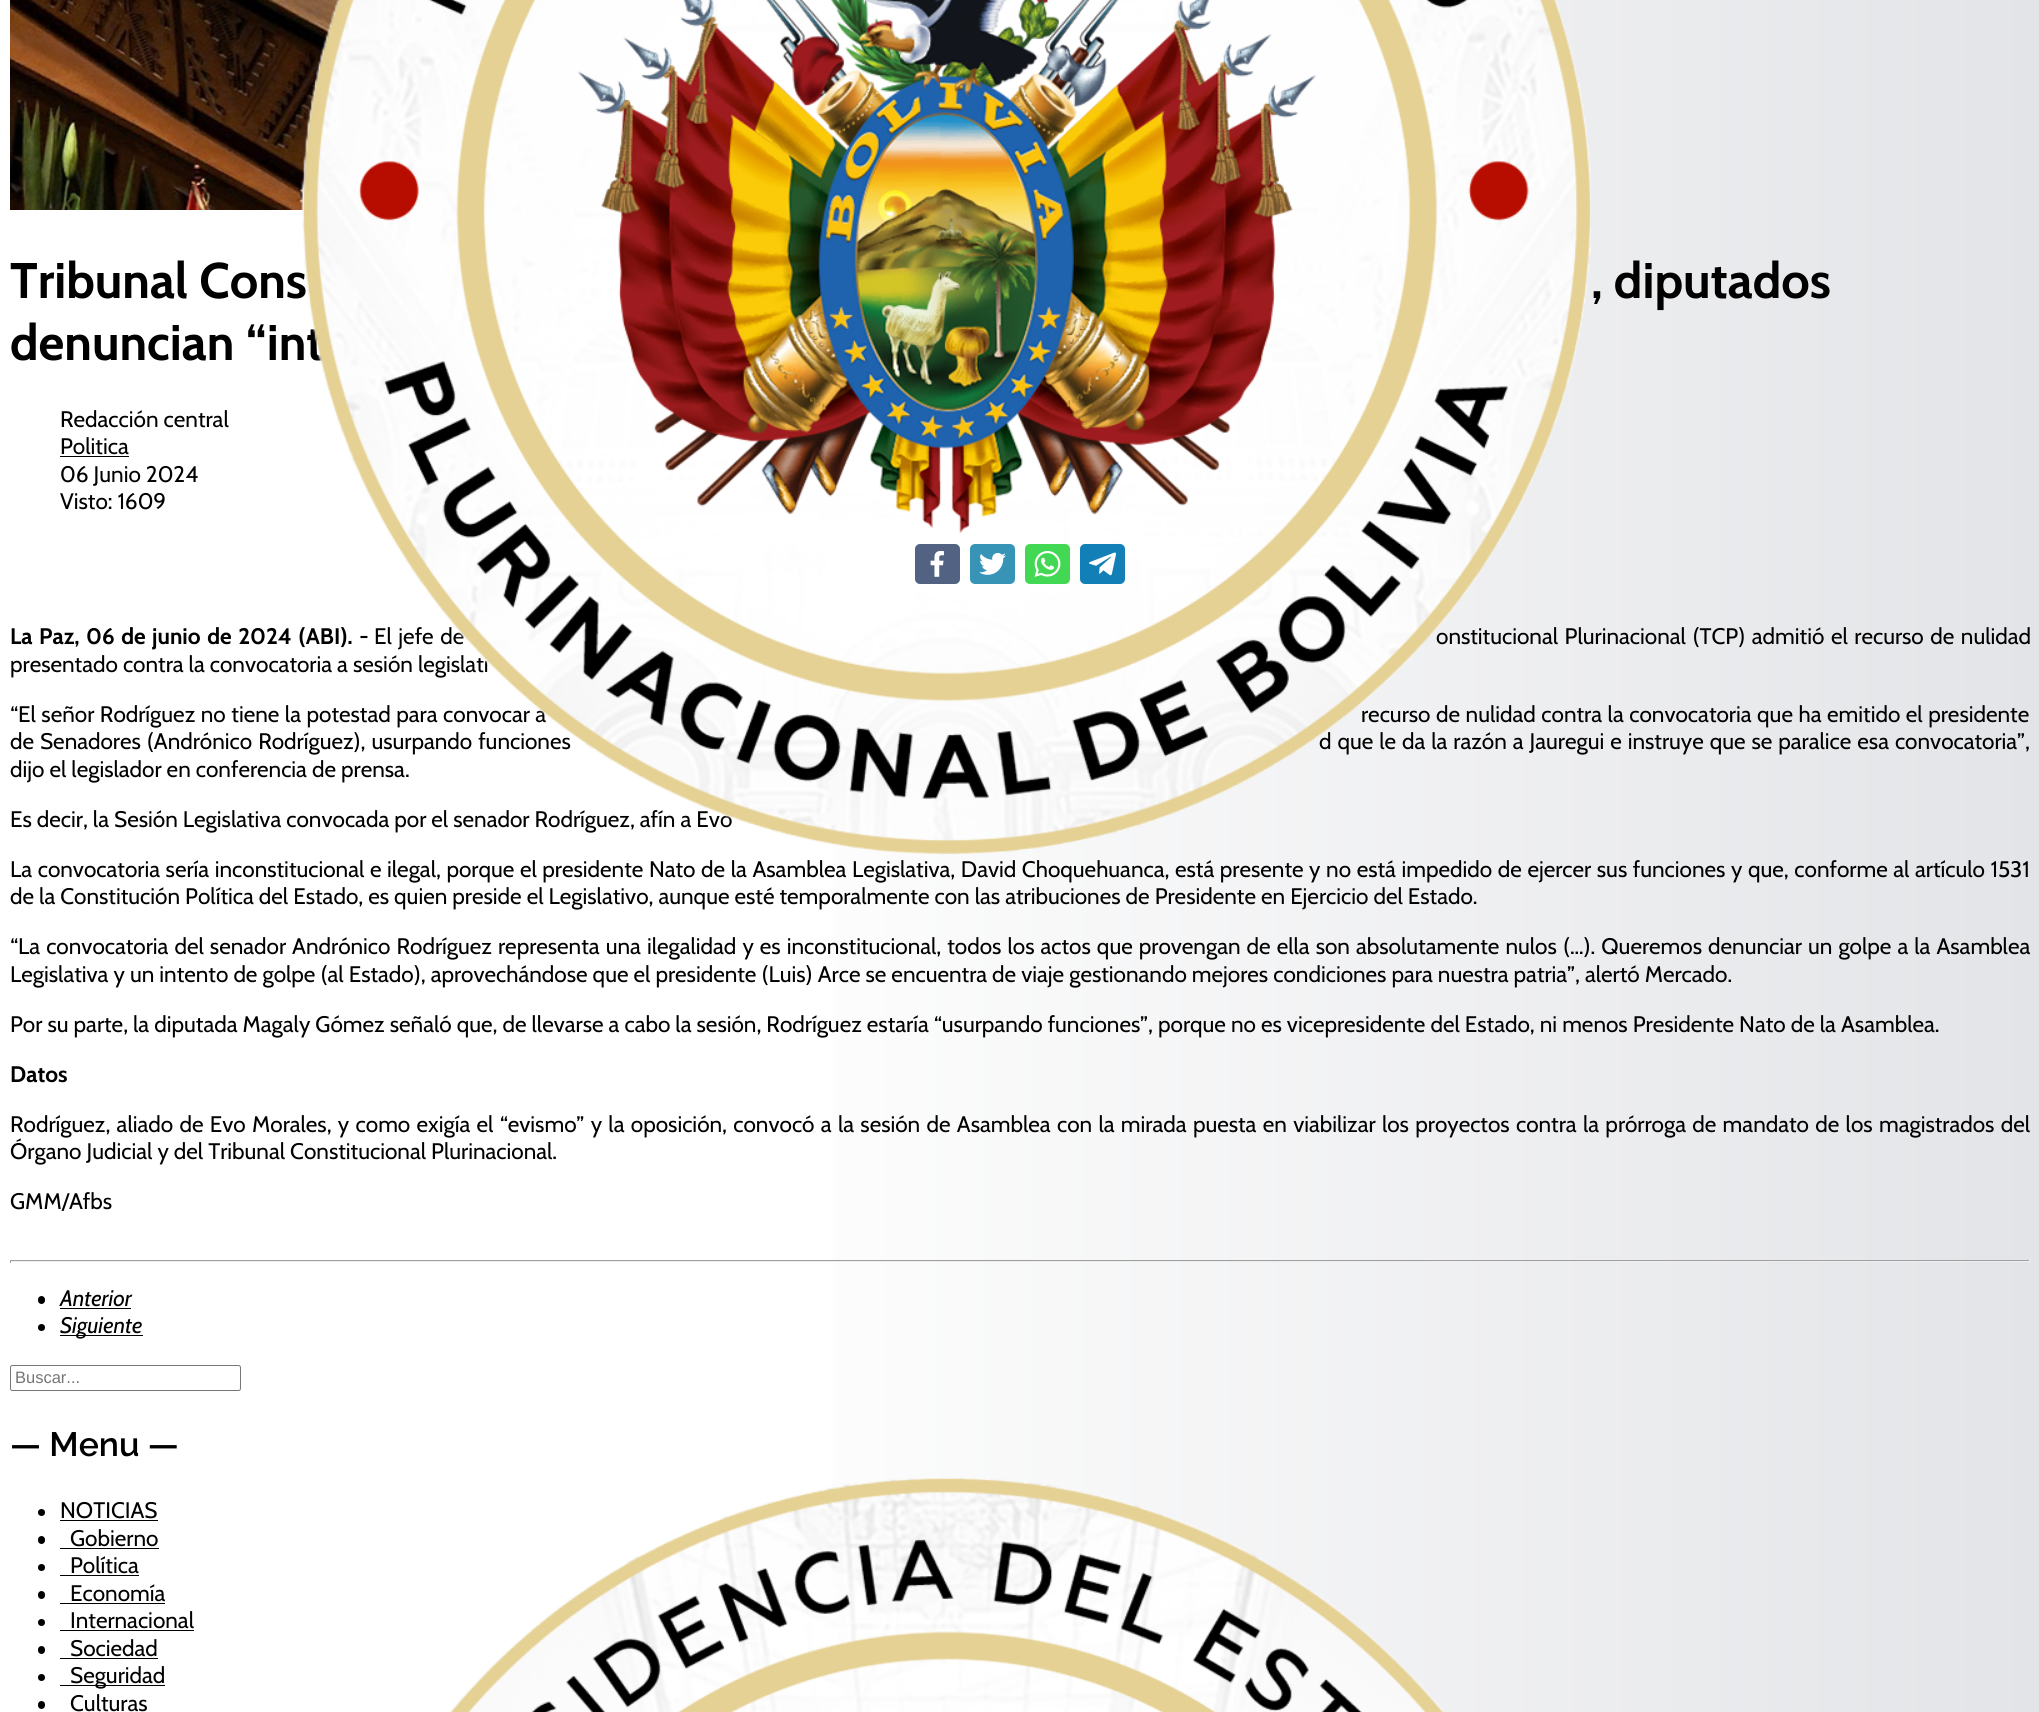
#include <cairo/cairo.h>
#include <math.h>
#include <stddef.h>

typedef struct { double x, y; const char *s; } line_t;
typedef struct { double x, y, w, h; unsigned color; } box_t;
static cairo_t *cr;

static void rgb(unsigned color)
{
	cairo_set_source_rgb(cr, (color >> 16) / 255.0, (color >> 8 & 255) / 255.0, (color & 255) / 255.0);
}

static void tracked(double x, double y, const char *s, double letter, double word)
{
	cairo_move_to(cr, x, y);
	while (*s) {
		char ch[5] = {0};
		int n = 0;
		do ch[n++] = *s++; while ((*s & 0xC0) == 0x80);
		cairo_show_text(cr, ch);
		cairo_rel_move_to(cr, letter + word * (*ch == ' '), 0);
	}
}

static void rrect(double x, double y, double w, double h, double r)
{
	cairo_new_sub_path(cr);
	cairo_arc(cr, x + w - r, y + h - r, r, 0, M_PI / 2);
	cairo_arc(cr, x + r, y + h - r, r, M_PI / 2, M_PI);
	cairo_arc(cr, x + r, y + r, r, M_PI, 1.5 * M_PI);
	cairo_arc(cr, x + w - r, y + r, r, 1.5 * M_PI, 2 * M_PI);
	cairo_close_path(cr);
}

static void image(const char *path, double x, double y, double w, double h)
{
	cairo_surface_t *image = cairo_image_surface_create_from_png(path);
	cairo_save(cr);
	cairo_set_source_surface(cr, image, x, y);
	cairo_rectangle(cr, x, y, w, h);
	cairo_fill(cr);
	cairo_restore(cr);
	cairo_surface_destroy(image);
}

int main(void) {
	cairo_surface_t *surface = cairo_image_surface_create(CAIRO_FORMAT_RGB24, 2039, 1712);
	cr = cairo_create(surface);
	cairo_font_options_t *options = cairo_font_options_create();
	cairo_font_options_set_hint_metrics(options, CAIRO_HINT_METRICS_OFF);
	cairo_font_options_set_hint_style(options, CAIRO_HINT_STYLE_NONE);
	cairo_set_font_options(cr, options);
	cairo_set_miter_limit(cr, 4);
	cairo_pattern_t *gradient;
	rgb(0xffffff);
	cairo_paint(cr);
	gradient = cairo_pattern_create_linear(0, 789, 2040, 789);
	cairo_pattern_add_color_stop_rgba(gradient, 0, 1, 1, 1, 1);
	cairo_pattern_add_color_stop_rgba(gradient, 0.35, 1, 1, 1, 1);
	cairo_pattern_add_color_stop_rgba(gradient, 1, 0.89, 0.894, 0.906, 1);
	cairo_set_source(cr, gradient);
	cairo_pattern_destroy(gradient);
	cairo_rectangle(cr, 832, 0, 1207, 1712);
	cairo_fill(cr);
	image("img/2.png", 450, 1477, 993, 235);
	image("img/3.png", 10, 0, 340, 210);
	{
		static const box_t items[] = {
			{60, 456, 69, 1, 0x000000},
			{10, 1260, 2020, 1, 0x9f9f9f},
			{2029, 1260, 1, 3, 0xeeeeee},
			{10, 1261, 2020, 1, 0xeeeeee},
			{10, 1260, 1, 3, 0x9f9f9f},
		};
		for (size_t i = 0; i < sizeof items / sizeof *items; i++) {
			rgb(items[i].color);
			cairo_rectangle(cr, items[i].x, items[i].y, items[i].w, items[i].h);
			cairo_fill(cr);
		}
	}
	rgb(0x000000);
	rrect(38, 1296, 7, 8, 3.5);
	cairo_fill(cr);
	cairo_rectangle(cr, 60, 1308, 71, 1);
	cairo_fill(cr);
	cairo_arc(cr, 41.5, 1327.5, 3.5, 0, 2 * M_PI);
	cairo_fill(cr);
	cairo_rectangle(cr, 60, 1335, 83, 1);
	cairo_fill(cr);
	rrect(10.5, 1365.5, 230, 25, 2);
	rgb(0x767676);
	cairo_set_line_width(cr, 1);
	cairo_stroke(cr);
	rgb(0x000000);
	cairo_arc(cr, 41.5, 1512.5, 3.5, 0, 2 * M_PI);
	cairo_fill(cr);
	cairo_rectangle(cr, 60, 1520, 98, 1);
	cairo_fill(cr);
	rrect(38, 1536, 7, 8, 3.5);
	cairo_fill(cr);
	cairo_rectangle(cr, 60, 1548, 99, 1);
	cairo_fill(cr);
	cairo_arc(cr, 41.5, 1567.5, 3.5, 0, 2 * M_PI);
	cairo_fill(cr);
	cairo_rectangle(cr, 60, 1575, 79, 1);
	cairo_fill(cr);
	rrect(38, 1591, 7, 8, 3.5);
	cairo_fill(cr);
	cairo_rectangle(cr, 60, 1603, 105, 1);
	cairo_fill(cr);
	cairo_arc(cr, 41.5, 1622.5, 3.5, 0, 2 * M_PI);
	cairo_fill(cr);
	cairo_rectangle(cr, 60, 1630, 134, 1);
	cairo_fill(cr);
	rrect(38, 1646, 7, 8, 3.5);
	cairo_fill(cr);
	cairo_rectangle(cr, 60, 1658, 98, 1);
	cairo_fill(cr);
	cairo_arc(cr, 41.5, 1677.5, 3.5, 0, 2 * M_PI);
	cairo_fill(cr);
	cairo_rectangle(cr, 60, 1685, 105, 1);
	cairo_fill(cr);
	rrect(38, 1701, 7, 8, 3.5);
	cairo_fill(cr);
	cairo_select_font_face(cr, "Cabin", CAIRO_FONT_SLANT_NORMAL, CAIRO_FONT_WEIGHT_BOLD);
	cairo_set_font_size(cr, 50);
	{
		static const line_t items[] = {
			{10, 298, "Tribunal Cons"},
			{1591, 298, ", diputados"},
			{10, 360, "denuncian “int"},
		};
		for (size_t i = 0; i < sizeof items / sizeof *items; i++) {
			cairo_move_to(cr, items[i].x, items[i].y);
			cairo_show_text(cr, items[i].s);
		}
	}
	cairo_select_font_face(cr, "Cabin", CAIRO_FONT_SLANT_NORMAL, CAIRO_FONT_WEIGHT_NORMAL);
	cairo_set_font_size(cr, 22.5);
	{
		static const line_t items[] = {
			{60, 427, "Redacción central"},
			{60, 454, "Politica"},
			{60, 482, "06 Junio 2024"},
			{60, 509, "Visto: 1609"},
		};
		for (size_t i = 0; i < sizeof items / sizeof *items; i++) {
			cairo_move_to(cr, items[i].x, items[i].y);
			cairo_show_text(cr, items[i].s);
		}
	}
	cairo_select_font_face(cr, "Cabin", CAIRO_FONT_SLANT_NORMAL, CAIRO_FONT_WEIGHT_BOLD);
	tracked(10, 644, "La Paz, 06 de junio de 2024 (ABI). -", 0, 1.5);
	cairo_select_font_face(cr, "Cabin", CAIRO_FONT_SLANT_NORMAL, CAIRO_FONT_WEIGHT_NORMAL);
	tracked(374, 644, "El jefe de", 0, 1.5);
	tracked(1436, 644, "onstitucional Plurinacional (TCP) admitió el recurso de nulidad", 0, 1.5);
	cairo_move_to(cr, 10, 672);
	cairo_show_text(cr, "presentado contra la convocatoria a sesión legislati");
	tracked(10, 722, "“El señor Rodríguez no tiene la potestad para convocar a", 0, 0.5);
	tracked(1361, 722, "recurso de nulidad contra la convocatoria que ha emitido el presidente", 0, 0.5);
	tracked(10, 749, "de Senadores (Andrónico Rodríguez), usurpando funciones", 0, 0.9);
	tracked(1319, 749, "d que le da la razón a Jauregui e instruye que se paralice esa convocatoria”,", 0, 0.9);
	cairo_move_to(cr, 10, 777);
	cairo_show_text(cr, "dijo el legislador en conferencia de prensa.");
	cairo_move_to(cr, 10, 827);
	cairo_show_text(cr, "Es decir, la Sesión Legislativa convocada por el senador Rodríguez, afín a Evo");
	image("img/1.png", 301, 0, 1290, 855);
	rgb(0x127fb6);
	rrect(1080, 544, 45, 40, 5);
	cairo_fill(cr);
	image("img/7.png", 1089, 552, 27, 24);
	rgb(0x43d854);
	rrect(1025, 544, 45, 40, 5);
	cairo_fill(cr);
	image("img/6.png", 1034, 550, 27, 27);
	rgb(0x3894b6);
	rrect(970, 544, 45, 40, 5);
	cairo_fill(cr);
	image("img/5.png", 979, 552, 27, 23);
	rgb(0x526282);
	rrect(915, 544, 45, 40, 5);
	cairo_fill(cr);
	image("img/4.png", 930, 550, 14, 27);
	rgb(0x000000);
	tracked(10, 877, "La convocatoria sería inconstitucional e ilegal, porque el presidente Nato de la Asamblea Legislativa, David Choquehuanca, está presente y no está impedido de ejercer sus funciones y que, conforme al artículo 1531", 0, 0.55);
	cairo_move_to(cr, 10, 904);
	cairo_show_text(cr, "de la Constitución Política del Estado, es quien preside el Legislativo, aunque esté temporalmente con las atribuciones de Presidente en Ejercicio del Estado.");
	tracked(10, 954, "“La convocatoria del senador Andrónico Rodríguez representa una ilegalidad y es inconstitucional, todos los actos que provengan de ella son absolutamente nulos (…). Queremos denunciar un golpe a la Asamblea", 0, 1);
	cairo_move_to(cr, 10, 982);
	cairo_show_text(cr, "Legislativa y un intento de golpe (al Estado), aprovechándose que el presidente (Luis) Arce se encuentra de viaje gestionando mejores condiciones para nuestra patria”, alertó Mercado.");
	cairo_move_to(cr, 10, 1032);
	cairo_show_text(cr, "Por su parte, la diputada Magaly Gómez señaló que, de llevarse a cabo la sesión, Rodríguez estaría “usurpando funciones”, porque no es vicepresidente del Estado, ni menos Presidente Nato de la Asamblea.");
	cairo_select_font_face(cr, "Cabin", CAIRO_FONT_SLANT_NORMAL, CAIRO_FONT_WEIGHT_BOLD);
	cairo_move_to(cr, 10, 1082);
	cairo_show_text(cr, "Datos");
	cairo_select_font_face(cr, "Cabin", CAIRO_FONT_SLANT_NORMAL, CAIRO_FONT_WEIGHT_NORMAL);
	tracked(10, 1132, "Rodríguez, aliado de Evo Morales, y como exigía el “evismo” y la oposición, convocó a la sesión de Asamblea con la mirada puesta en viabilizar los proyectos contra la prórroga de mandato de los magistrados del", 0, 1.25);
	cairo_move_to(cr, 10, 1159);
	cairo_show_text(cr, "Órgano Judicial y del Tribunal Constitucional Plurinacional.");
	cairo_move_to(cr, 10, 1209);
	cairo_show_text(cr, "GMM/Afbs");
	cairo_select_font_face(cr, "Cabin", CAIRO_FONT_SLANT_ITALIC, CAIRO_FONT_WEIGHT_NORMAL);
	cairo_move_to(cr, 60, 1306);
	cairo_show_text(cr, "Anterior");
	cairo_move_to(cr, 60, 1333);
	cairo_show_text(cr, "Siguiente");
	cairo_select_font_face(cr, "Liberation Sans", CAIRO_FONT_SLANT_NORMAL, CAIRO_FONT_WEIGHT_NORMAL);
	cairo_set_font_size(cr, 16.5);
	rgb(0x757575);
	cairo_move_to(cr, 15, 1383);
	cairo_show_text(cr, "Buscar...");
	cairo_select_font_face(cr, "Raleway SemiBold", CAIRO_FONT_SLANT_NORMAL, CAIRO_FONT_WEIGHT_NORMAL);
	cairo_set_font_size(cr, 33.75);
	rgb(0x000000);
	cairo_move_to(cr, 10, 1456);
	cairo_show_text(cr, "— Menu —");
	cairo_select_font_face(cr, "Cabin", CAIRO_FONT_SLANT_NORMAL, CAIRO_FONT_WEIGHT_NORMAL);
	cairo_set_font_size(cr, 22.5);
	{
		static const line_t items[] = {
			{60, 1518, "NOTICIAS"},
			{70, 1546, "Gobierno"},
			{70, 1573, "Política"},
			{70, 1601, "Economía"},
			{70, 1628, "Internacional"},
			{70, 1656, "Sociedad"},
			{70, 1683, "Seguridad"},
			{70, 1711, "Culturas"},
		};
		for (size_t i = 0; i < sizeof items / sizeof *items; i++) {
			cairo_move_to(cr, items[i].x, items[i].y);
			cairo_show_text(cr, items[i].s);
		}
	}
	cairo_surface_write_to_png(surface, "page.png");
	cairo_font_options_destroy(options);
	cairo_destroy(cr);
	cairo_surface_destroy(surface);
	return 0;
}
